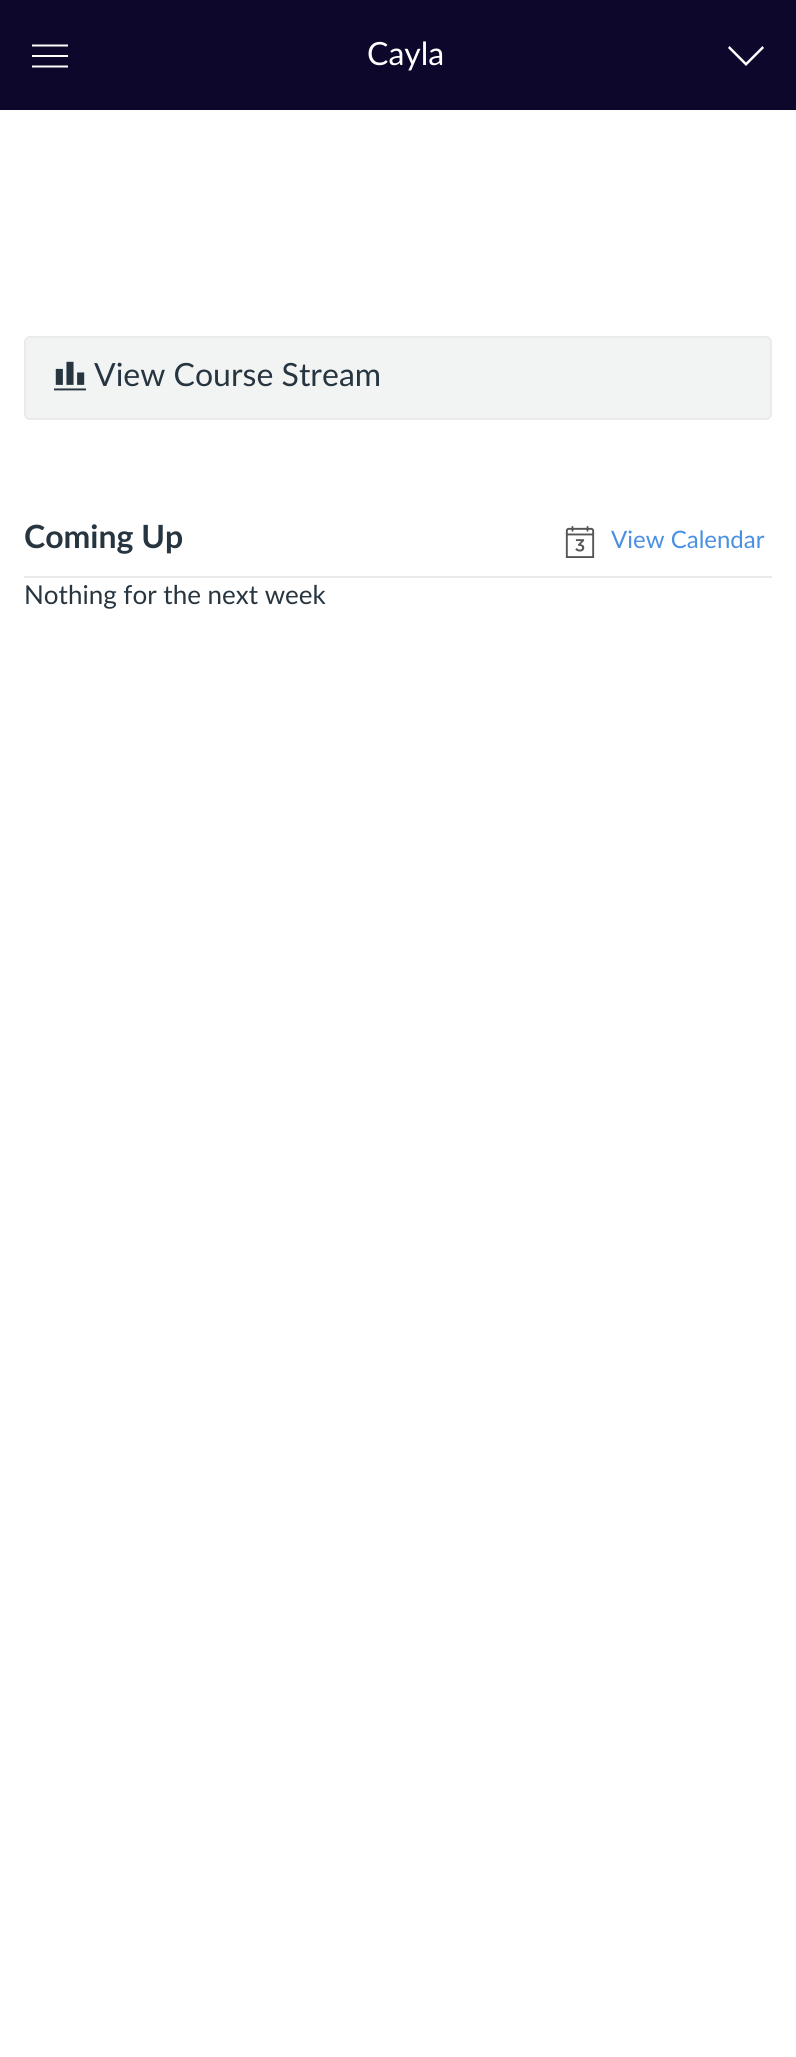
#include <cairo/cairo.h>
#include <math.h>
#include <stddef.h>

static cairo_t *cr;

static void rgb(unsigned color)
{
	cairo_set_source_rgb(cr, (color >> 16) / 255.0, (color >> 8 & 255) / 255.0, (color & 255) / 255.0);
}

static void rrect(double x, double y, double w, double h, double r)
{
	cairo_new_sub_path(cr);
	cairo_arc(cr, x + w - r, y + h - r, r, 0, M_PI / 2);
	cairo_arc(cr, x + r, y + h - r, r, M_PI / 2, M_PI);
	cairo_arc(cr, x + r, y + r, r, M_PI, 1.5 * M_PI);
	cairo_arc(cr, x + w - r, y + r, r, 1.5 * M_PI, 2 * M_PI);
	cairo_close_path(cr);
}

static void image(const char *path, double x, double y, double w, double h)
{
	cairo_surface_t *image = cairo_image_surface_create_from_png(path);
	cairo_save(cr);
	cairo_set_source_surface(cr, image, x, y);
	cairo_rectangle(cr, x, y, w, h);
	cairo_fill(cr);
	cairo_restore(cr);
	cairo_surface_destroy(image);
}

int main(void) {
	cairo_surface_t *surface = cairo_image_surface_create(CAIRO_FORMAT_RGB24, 796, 2057);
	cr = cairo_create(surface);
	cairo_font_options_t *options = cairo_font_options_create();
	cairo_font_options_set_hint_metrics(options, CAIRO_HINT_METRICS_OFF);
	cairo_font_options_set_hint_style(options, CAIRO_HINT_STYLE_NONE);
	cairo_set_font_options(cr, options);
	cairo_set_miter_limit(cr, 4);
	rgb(0xffffff);
	cairo_paint(cr);
	rgb(0x0e072c);
	cairo_rectangle(cr, 0, 0, 796, 110);
	cairo_fill(cr);
	rgb(0xffffff);
	cairo_new_path(cr);
	cairo_move_to(cr, 68, 65.5);
	cairo_line_to(cr, 68, 67.5);
	cairo_line_to(cr, 32, 67.5);
	cairo_line_to(cr, 32, 65.5);
	cairo_close_path(cr);
	cairo_move_to(cr, 68, 55);
	cairo_line_to(cr, 68, 57);
	cairo_line_to(cr, 32, 57);
	cairo_line_to(cr, 32, 55);
	cairo_close_path(cr);
	cairo_move_to(cr, 68, 44.5);
	cairo_line_to(cr, 68, 46.5);
	cairo_line_to(cr, 32, 46.5);
	cairo_line_to(cr, 32, 44.5);
	cairo_close_path(cr);
	cairo_fill(cr);
	cairo_new_path(cr);
	cairo_move_to(cr, 728, 48);
	cairo_line_to(cr, 729.5, 46);
	cairo_line_to(cr, 746, 62.5);
	cairo_line_to(cr, 762.5, 46);
	cairo_line_to(cr, 764, 48);
	cairo_line_to(cr, 746, 66);
	cairo_close_path(cr);
	cairo_fill(cr);
	rgb(0xf2f4f4);
	rrect(25, 337, 746, 82, 5);
	cairo_fill_preserve(cr);
	rgb(0xe8eaec);
	cairo_stroke(cr);
	image("img/1.png", 54, 361, 32, 30);
	cairo_rectangle(cr, 24, 576, 748, 2);
	cairo_fill(cr);
	image("img/2.png", 565, 526, 30, 32);
	cairo_select_font_face(cr, "Lato", CAIRO_FONT_SLANT_NORMAL, CAIRO_FONT_WEIGHT_NORMAL);
	cairo_set_font_size(cr, 32);
	rgb(0xffffff);
	cairo_move_to(cr, 367, 65);
	cairo_show_text(cr, "Cayla");
	rgb(0x273540);
	cairo_move_to(cr, 94, 386);
	cairo_show_text(cr, "View Course Stream");
	cairo_select_font_face(cr, "Lato", CAIRO_FONT_SLANT_NORMAL, CAIRO_FONT_WEIGHT_BOLD);
	cairo_move_to(cr, 24, 548);
	cairo_show_text(cr, "Coming Up");
	cairo_select_font_face(cr, "Lato", CAIRO_FONT_SLANT_NORMAL, CAIRO_FONT_WEIGHT_NORMAL);
	cairo_set_font_size(cr, 24);
	rgb(0x4a90e2);
	cairo_move_to(cr, 611, 548);
	cairo_show_text(cr, "View Calendar");
	cairo_set_font_size(cr, 26);
	rgb(0x273540);
	cairo_move_to(cr, 24, 604);
	cairo_show_text(cr, "Nothing for the next week");
	cairo_surface_write_to_png(surface, "page.png");
	cairo_font_options_destroy(options);
	cairo_destroy(cr);
	cairo_surface_destroy(surface);
	return 0;
}
